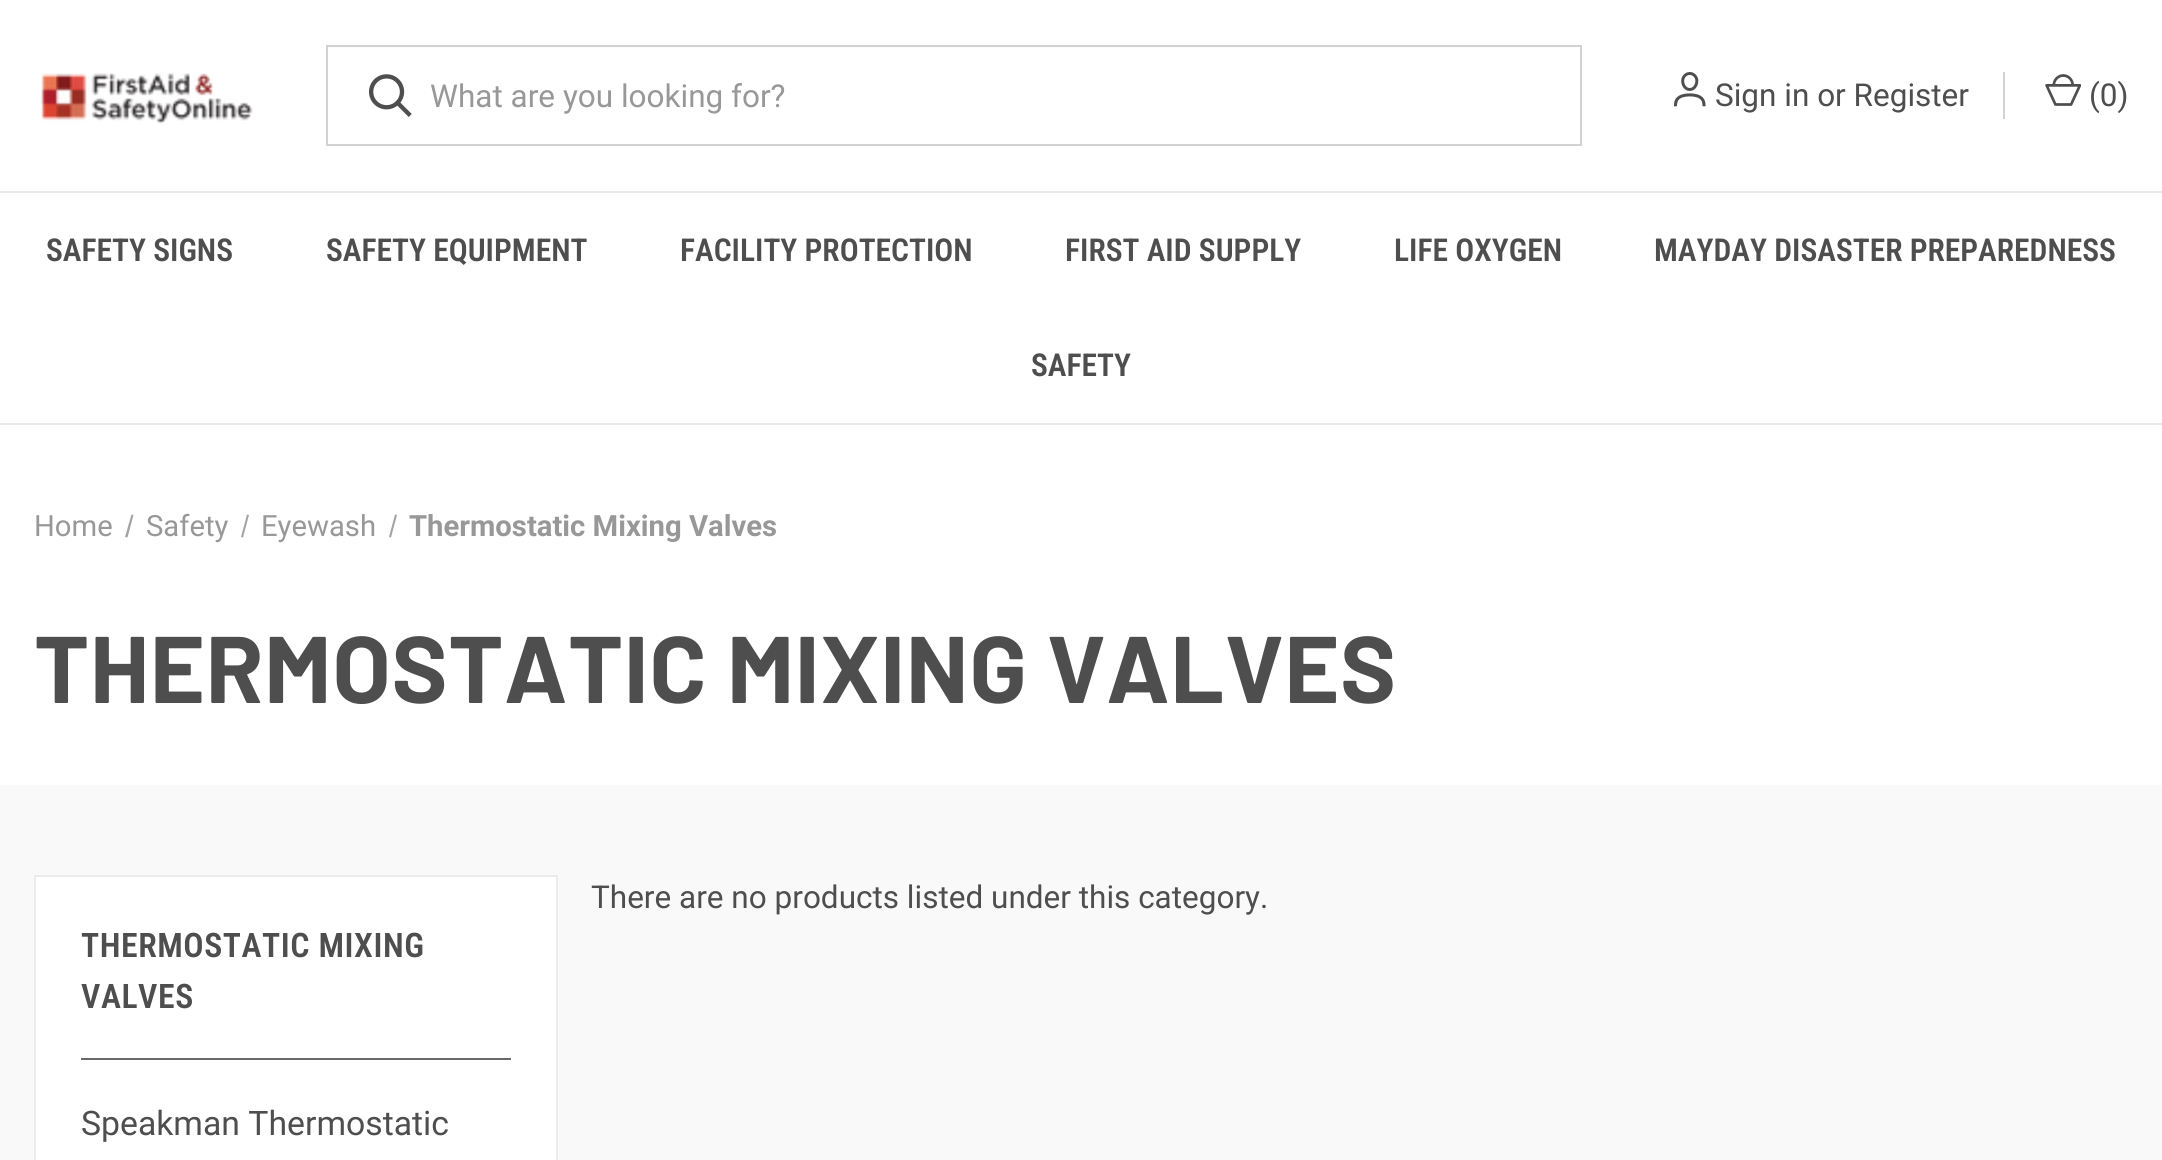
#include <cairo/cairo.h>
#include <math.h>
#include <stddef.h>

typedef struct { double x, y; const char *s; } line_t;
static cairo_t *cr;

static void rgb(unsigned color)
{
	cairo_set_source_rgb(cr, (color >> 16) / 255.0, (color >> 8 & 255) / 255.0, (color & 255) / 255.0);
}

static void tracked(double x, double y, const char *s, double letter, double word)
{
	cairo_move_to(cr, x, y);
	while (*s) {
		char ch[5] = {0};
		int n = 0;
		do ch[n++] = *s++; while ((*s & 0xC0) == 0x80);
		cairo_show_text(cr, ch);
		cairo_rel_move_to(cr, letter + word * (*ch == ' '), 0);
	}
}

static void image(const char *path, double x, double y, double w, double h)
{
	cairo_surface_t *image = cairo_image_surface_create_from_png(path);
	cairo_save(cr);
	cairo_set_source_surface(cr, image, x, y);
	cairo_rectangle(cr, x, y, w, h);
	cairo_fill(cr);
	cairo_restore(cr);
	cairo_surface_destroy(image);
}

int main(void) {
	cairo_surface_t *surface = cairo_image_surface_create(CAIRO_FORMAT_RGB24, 2162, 1160);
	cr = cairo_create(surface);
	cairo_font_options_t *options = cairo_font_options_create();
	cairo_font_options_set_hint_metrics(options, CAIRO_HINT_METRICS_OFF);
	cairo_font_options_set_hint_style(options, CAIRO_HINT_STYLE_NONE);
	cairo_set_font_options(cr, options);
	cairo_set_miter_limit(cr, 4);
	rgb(0xffffff);
	cairo_paint(cr);
	image("img/1.png", 41, 73, 212, 51);
	cairo_rectangle(cr, 327, 46, 1254, 99);
	rgb(0xd2d2d2);
	cairo_stroke(cr);
	image("img/2.png", 369, 74, 43, 43);
	image("img/3.png", 1673, 72, 33, 35);
	cairo_rectangle(cr, 2003, 72, 2, 47);
	cairo_fill(cr);
	image("img/4.png", 2045, 74, 36, 32);
	rgb(0xebebeb);
	cairo_rectangle(cr, 0, 191, 2162, 2);
	cairo_fill(cr);
	cairo_rectangle(cr, 0, 423, 2162, 2);
	cairo_fill(cr);
	rgb(0xa3a3a3);
	cairo_new_path(cr);
	cairo_move_to(cr, 131.5, 514.5);
	cairo_line_to(cr, 133.5, 515);
	cairo_line_to(cr, 127.5, 537.5);
	cairo_line_to(cr, 125, 537);
	cairo_close_path(cr);
	cairo_fill(cr);
	cairo_new_path(cr);
	cairo_move_to(cr, 247, 514.5);
	cairo_line_to(cr, 249, 515);
	cairo_line_to(cr, 243, 537.5);
	cairo_line_to(cr, 241, 537);
	cairo_close_path(cr);
	cairo_fill(cr);
	cairo_new_path(cr);
	cairo_move_to(cr, 395, 514.5);
	cairo_line_to(cr, 397, 515);
	cairo_line_to(cr, 391, 537.5);
	cairo_line_to(cr, 389, 537);
	cairo_close_path(cr);
	cairo_fill(cr);
	rgb(0xf9f9f9);
	cairo_rectangle(cr, 0, 785, 2162, 375);
	cairo_fill(cr);
	rgb(0xffffff);
	cairo_rectangle(cr, 35, 876, 522, 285);
	cairo_fill_preserve(cr);
	rgb(0xebebeb);
	cairo_stroke(cr);
	rgb(0x696969);
	cairo_rectangle(cr, 81, 1058, 430, 2);
	cairo_fill(cr);
	cairo_select_font_face(cr, "Roboto", CAIRO_FONT_SLANT_NORMAL, CAIRO_FONT_WEIGHT_NORMAL);
	cairo_set_font_size(cr, 31.5);
	rgb(0x989898);
	cairo_move_to(cr, 430, 107);
	cairo_show_text(cr, "What are you looking for?");
	rgb(0x4e4e4e);
	cairo_move_to(cr, 1715, 106);
	cairo_show_text(cr, "Sign in or Register");
	cairo_move_to(cr, 2089, 106);
	cairo_show_text(cr, "(0)");
	cairo_select_font_face(cr, "Roboto Condensed SemiBold", CAIRO_FONT_SLANT_NORMAL, CAIRO_FONT_WEIGHT_NORMAL);
	{
		static const line_t items[] = {
			{46, 261, "SAFETY SIGNS"},
			{326, 261, "SAFETY EQUIPMENT"},
			{680, 261, "FACILITY PROTECTION"},
			{1065, 261, "FIRST AID SUPPLY"},
			{1394, 261, "LIFE OXYGEN"},
			{1654, 261, "MAYDAY DISASTER PREPAREDNESS"},
			{1031, 376, "SAFETY"},
		};
		for (size_t i = 0; i < sizeof items / sizeof *items; i++) {
			cairo_move_to(cr, items[i].x, items[i].y);
			cairo_show_text(cr, items[i].s);
		}
	}
	cairo_select_font_face(cr, "Roboto", CAIRO_FONT_SLANT_NORMAL, CAIRO_FONT_WEIGHT_NORMAL);
	cairo_set_font_size(cr, 29.25);
	rgb(0x989898);
	{
		static const line_t items[] = {
			{34, 536, "Home"},
			{146, 536, "Safety"},
			{261, 536, "Eyewash"},
		};
		for (size_t i = 0; i < sizeof items / sizeof *items; i++) {
			cairo_move_to(cr, items[i].x, items[i].y);
			cairo_show_text(cr, items[i].s);
		}
	}
	cairo_select_font_face(cr, "Roboto", CAIRO_FONT_SLANT_NORMAL, CAIRO_FONT_WEIGHT_BOLD);
	cairo_move_to(cr, 409, 536);
	cairo_show_text(cr, "Thermostatic Mixing Valves");
	cairo_select_font_face(cr, "Barlow", CAIRO_FONT_SLANT_NORMAL, CAIRO_FONT_WEIGHT_BOLD);
	cairo_set_font_size(cr, 94.5);
	rgb(0x4e4e4e);
	tracked(34, 703, "THERMOSTATIC MIXING VALVES", 0.55, 0);
	cairo_select_font_face(cr, "Roboto", CAIRO_FONT_SLANT_NORMAL, CAIRO_FONT_WEIGHT_NORMAL);
	cairo_set_font_size(cr, 31.5);
	cairo_move_to(cr, 591, 908);
	cairo_show_text(cr, "There are no products listed under this category.");
	cairo_select_font_face(cr, "Roboto Condensed SemiBold", CAIRO_FONT_SLANT_NORMAL, CAIRO_FONT_WEIGHT_NORMAL);
	cairo_set_font_size(cr, 33.75);
	tracked(81, 957, "THERMOSTATIC MIXING", 0.55, 0);
	tracked(81, 1008, "VALVES", 0.55, 0);
	cairo_select_font_face(cr, "Roboto", CAIRO_FONT_SLANT_NORMAL, CAIRO_FONT_WEIGHT_NORMAL);
	cairo_move_to(cr, 81, 1135);
	cairo_show_text(cr, "Speakman Thermostatic");
	cairo_surface_write_to_png(surface, "page.png");
	cairo_font_options_destroy(options);
	cairo_destroy(cr);
	cairo_surface_destroy(surface);
	return 0;
}
